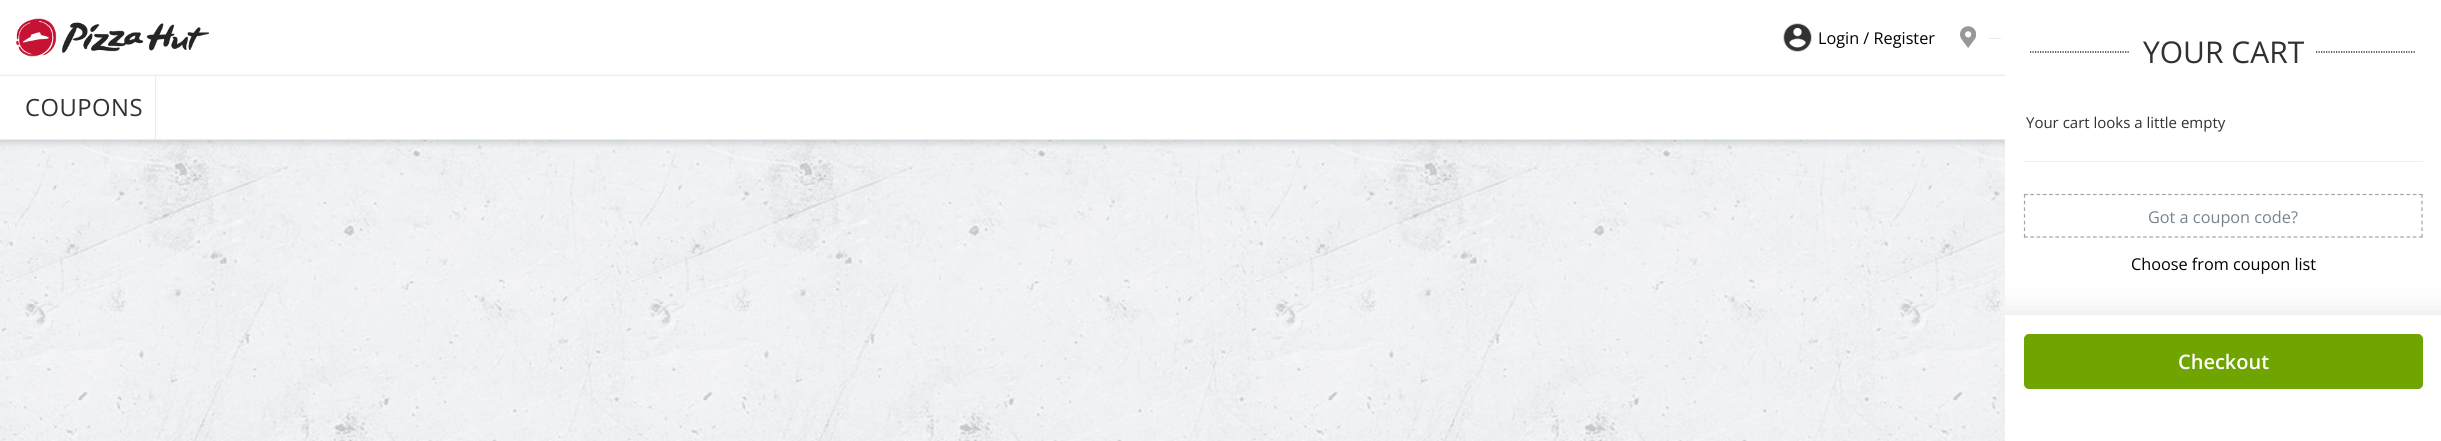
#include <cairo/cairo.h>
#include <math.h>
#include <stddef.h>

typedef struct { double x, y, w, h; unsigned color; } box_t;
static cairo_t *cr;

static void rgb(unsigned color)
{
	cairo_set_source_rgb(cr, (color >> 16) / 255.0, (color >> 8 & 255) / 255.0, (color & 255) / 255.0);
}

static void tracked(double x, double y, const char *s, double letter, double word)
{
	cairo_move_to(cr, x, y);
	while (*s) {
		char ch[5] = {0};
		int n = 0;
		do ch[n++] = *s++; while ((*s & 0xC0) == 0x80);
		cairo_show_text(cr, ch);
		cairo_rel_move_to(cr, letter + word * (*ch == ' '), 0);
	}
}

static void rrect(double x, double y, double w, double h, double r)
{
	cairo_new_sub_path(cr);
	cairo_arc(cr, x + w - r, y + h - r, r, 0, M_PI / 2);
	cairo_arc(cr, x + r, y + h - r, r, M_PI / 2, M_PI);
	cairo_arc(cr, x + r, y + r, r, M_PI, 1.5 * M_PI);
	cairo_arc(cr, x + w - r, y + r, r, 1.5 * M_PI, 2 * M_PI);
	cairo_close_path(cr);
}

static void soft_shadow(double x, double y, double w, double h, double r, double blur, double alpha)
{
	cairo_push_group_with_content(cr, CAIRO_CONTENT_ALPHA);
	cairo_set_operator(cr, CAIRO_OPERATOR_SOURCE);
	for (int i = 15; i >= -15 && fmin(w, h) + blur * i / 3 > 0; i -= 2) {
		double e = blur * i / 6;
		cairo_set_source_rgba(cr, 0, 0, 0, alpha * erfc((i - 1) / 8.5) / 2);
		rrect(x - e, y - e, w + 2 * e, h + 2 * e, fmax(0, fmin(r + e + blur * .6, fmin(w, h) / 2 + e)));
		cairo_fill(cr);
	}
	cairo_pattern_t *soft = cairo_pop_group(cr);
	cairo_mask(cr, soft);
	cairo_pattern_destroy(soft);
}

static void image(const char *path, double x, double y, double w, double h)
{
	cairo_surface_t *image = cairo_image_surface_create_from_png(path);
	cairo_save(cr);
	cairo_set_source_surface(cr, image, x, y);
	cairo_rectangle(cr, x, y, w, h);
	cairo_fill(cr);
	cairo_restore(cr);
	cairo_surface_destroy(image);
}

int main(void) {
	cairo_surface_t *surface = cairo_image_surface_create(CAIRO_FORMAT_RGB24, 2441, 441);
	cr = cairo_create(surface);
	cairo_font_options_t *options = cairo_font_options_create();
	cairo_font_options_set_hint_metrics(options, CAIRO_HINT_METRICS_OFF);
	cairo_font_options_set_hint_style(options, CAIRO_HINT_STYLE_NONE);
	cairo_set_font_options(cr, options);
	cairo_set_miter_limit(cr, 4);
	rgb(0xffffff);
	cairo_paint(cr);
	image("img/1.png", 0, 140, 2005, 301);
	image("img/2.png", 16, 18, 193, 39);
	image("img/3.png", 1783, 23, 29, 29);
	image("img/4.png", 1960, 26, 16, 22);
	rgb(0xe9ebee);
	cairo_rectangle(cr, 1989, 38, 12, 1);
	cairo_fill(cr);
	rgb(0x78838c);
	soft_shadow(0, 78, 2005, 65, 0, 3, 0.3);
	{
		static const box_t items[] = {
			{0, 76, 2005, 63, 0xffffff},
			{0, 75, 2005, 1, 0xe9ebee},
			{0, 139, 2005, 1, 0xe9ebee},
			{155, 76, 1, 63, 0xe9ebee},
			{2005, 75, 5, 71, 0xffffff},
		};
		for (size_t i = 0; i < sizeof items / sizeof *items; i++) {
			rgb(items[i].color);
			cairo_rectangle(cr, items[i].x, items[i].y, items[i].w, items[i].h);
			cairo_fill(cr);
		}
	}
	cairo_new_path(cr);
	cairo_move_to(cr, 2030, 52);
	cairo_line_to(cr, 2130, 52);
	rgb(0x000000);
	cairo_set_line_width(cr, 1.2);
	cairo_set_dash(cr, (double[]){1.25, 1.25}, 2, 0);
	cairo_stroke(cr);
	cairo_new_path(cr);
	cairo_move_to(cr, 2316, 52);
	cairo_line_to(cr, 2416, 52);
	cairo_stroke(cr);
	rgb(0xeeeeee);
	cairo_rectangle(cr, 2024, 161, 399, 1);
	cairo_fill(cr);
	cairo_new_path(cr);
	cairo_move_to(cr, 2024, 194.5);
	cairo_line_to(cr, 2422.5, 194.5);
	rgb(0xa4a4a4);
	cairo_set_dash(cr, (double[]){3.75, 2.52}, 2, 0);
	cairo_stroke(cr);
	cairo_new_path(cr);
	cairo_move_to(cr, 2422, 194);
	cairo_line_to(cr, 2422, 237.5);
	cairo_set_dash(cr, (double[]){3.75, 2.91}, 2, 0);
	cairo_stroke(cr);
	cairo_new_path(cr);
	cairo_move_to(cr, 2024, 237);
	cairo_line_to(cr, 2422.5, 237);
	cairo_set_dash(cr, (double[]){3.75, 2.52}, 2, 0);
	cairo_stroke(cr);
	cairo_new_path(cr);
	cairo_move_to(cr, 2024.5, 194);
	cairo_line_to(cr, 2024.5, 237.5);
	cairo_set_dash(cr, (double[]){3.75, 2.91}, 2, 0);
	cairo_stroke(cr);
	cairo_save(cr);
	cairo_rectangle(cr, 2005, 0, 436, 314);
	cairo_clip(cr);
	rgb(0x000000);
	soft_shadow(1993, 313, 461, 57, 0, 14.5, 0.1);
	cairo_restore(cr);
	rgb(0xeeeeee);
	cairo_rectangle(cr, 2005, 314, 436, 1);
	cairo_fill(cr);
	rgb(0x70a401);
	rrect(2024.5, 334.5, 398, 54, 4.5);
	cairo_fill_preserve(cr);
	cairo_set_line_width(cr, 1);
	cairo_set_dash(cr, NULL, 0, 0);
	cairo_stroke(cr);
	cairo_select_font_face(cr, "Open Sans", CAIRO_FONT_SLANT_NORMAL, CAIRO_FONT_WEIGHT_NORMAL);
	cairo_set_font_size(cr, 16.25);
	rgb(0x000000);
	cairo_move_to(cr, 1818, 44);
	cairo_show_text(cr, "Login / Register");
	cairo_set_font_size(cr, 23.75);
	rgb(0x313131);
	tracked(25, 116, "COUPONS", 0.5, 0);
	cairo_set_font_size(cr, 30);
	cairo_move_to(cr, 2143, 63);
	cairo_show_text(cr, "YOUR CART");
	cairo_set_font_size(cr, 15);
	cairo_move_to(cr, 2026, 128);
	cairo_show_text(cr, "Your cart looks a little empty");
	cairo_set_font_size(cr, 16.25);
	rgb(0x78838c);
	cairo_move_to(cr, 2148, 223);
	cairo_show_text(cr, "Got a coupon code?");
	rgb(0x000000);
	cairo_move_to(cr, 2131, 270);
	cairo_show_text(cr, "Choose from coupon list");
	cairo_select_font_face(cr, "Open Sans SemiBold", CAIRO_FONT_SLANT_NORMAL, CAIRO_FONT_WEIGHT_NORMAL);
	cairo_set_font_size(cr, 20);
	rgb(0xffffff);
	cairo_move_to(cr, 2178, 369);
	cairo_show_text(cr, "Checkout");
	cairo_surface_write_to_png(surface, "page.png");
	cairo_font_options_destroy(options);
	cairo_destroy(cr);
	cairo_surface_destroy(surface);
	return 0;
}
